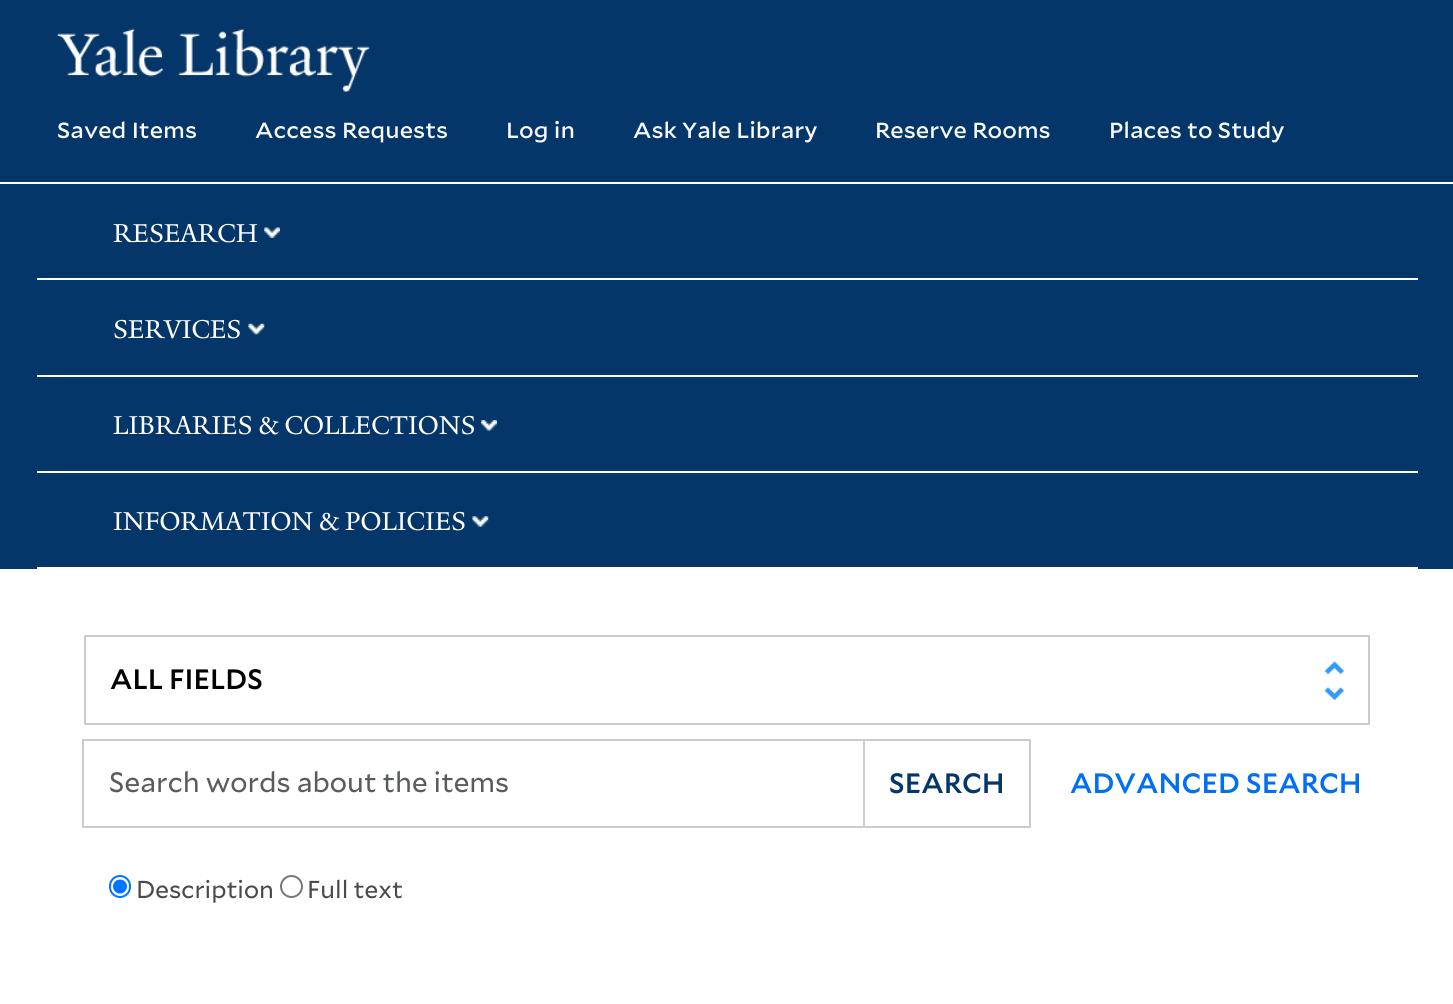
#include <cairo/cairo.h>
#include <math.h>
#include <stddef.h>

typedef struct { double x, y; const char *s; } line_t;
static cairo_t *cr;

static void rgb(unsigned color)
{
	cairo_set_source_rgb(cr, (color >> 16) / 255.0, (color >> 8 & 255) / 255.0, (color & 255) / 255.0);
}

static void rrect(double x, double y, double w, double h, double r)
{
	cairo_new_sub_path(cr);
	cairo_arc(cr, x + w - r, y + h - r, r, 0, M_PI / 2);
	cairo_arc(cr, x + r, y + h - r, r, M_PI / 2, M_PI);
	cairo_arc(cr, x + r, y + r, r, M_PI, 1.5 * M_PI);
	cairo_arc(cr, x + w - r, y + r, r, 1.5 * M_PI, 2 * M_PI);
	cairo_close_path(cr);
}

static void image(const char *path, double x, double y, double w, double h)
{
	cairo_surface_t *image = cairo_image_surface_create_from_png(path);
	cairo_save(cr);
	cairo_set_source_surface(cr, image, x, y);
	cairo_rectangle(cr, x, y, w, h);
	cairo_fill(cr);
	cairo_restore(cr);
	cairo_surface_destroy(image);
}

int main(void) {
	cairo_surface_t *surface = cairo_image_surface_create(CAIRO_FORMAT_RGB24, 1453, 1004);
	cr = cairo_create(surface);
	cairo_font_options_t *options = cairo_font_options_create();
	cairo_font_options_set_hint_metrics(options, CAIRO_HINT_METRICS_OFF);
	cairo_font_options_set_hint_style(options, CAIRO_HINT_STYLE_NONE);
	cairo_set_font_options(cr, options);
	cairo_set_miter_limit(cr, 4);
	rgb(0xffffff);
	cairo_paint(cr);
	rgb(0x043669);
	cairo_rectangle(cr, 0, 0, 1453, 182);
	cairo_fill(cr);
	image("img/1.png", 57, 28, 313, 64);
	cairo_rectangle(cr, 0, 184, 1453, 385);
	cairo_fill(cr);
	rgb(0xffffff);
	cairo_rectangle(cr, 37, 278, 1381, 2);
	cairo_fill(cr);
	image("img/2.png", 264, 227, 16, 11);
	cairo_rectangle(cr, 37, 375, 1381, 2);
	cairo_fill(cr);
	image("img/3.png", 248, 323, 17, 12);
	cairo_rectangle(cr, 37, 471, 1381, 2);
	cairo_fill(cr);
	image("img/4.png", 481, 420, 16, 11);
	cairo_rectangle(cr, 37, 567, 1381, 2);
	cairo_fill(cr);
	image("img/5.png", 472, 516, 17, 11);
	image("img/6.png", 1324, 661, 20, 39);
	cairo_rectangle(cr, 85, 636, 1284, 88);
	rgb(0xcccccc);
	cairo_stroke(cr);
	cairo_rectangle(cr, 83, 740, 781, 87);
	cairo_stroke(cr);
	cairo_rectangle(cr, 864, 740, 166, 87);
	cairo_stroke(cr);
	rrect(110, 876, 20, 21, 10);
	rgb(0x0075ff);
	cairo_stroke(cr);
	cairo_arc(cr, 120, 886.5, 7, 0, 2 * M_PI);
	cairo_fill(cr);
	cairo_arc(cr, 291.5, 886.5, 10.5, 0, 2 * M_PI);
	rgb(0x767676);
	cairo_stroke(cr);
	cairo_select_font_face(cr, "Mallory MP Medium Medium", CAIRO_FONT_SLANT_NORMAL, CAIRO_FONT_WEIGHT_NORMAL);
	cairo_set_font_size(cr, 21);
	rgb(0xf9f9f9);
	{
		static const line_t items[] = {
			{57, 138, "Saved Items"},
			{255, 138, "Access Requests"},
			{506, 138, "Log in"},
			{633, 138, "Ask Yale Library"},
			{875, 138, "Reserve Rooms"},
			{1109, 138, "Places to Study"},
		};
		for (size_t i = 0; i < sizeof items / sizeof *items; i++) {
			cairo_move_to(cr, items[i].x, items[i].y);
			cairo_show_text(cr, items[i].s);
		}
	}
	cairo_select_font_face(cr, "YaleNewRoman", CAIRO_FONT_SLANT_NORMAL, CAIRO_FONT_WEIGHT_NORMAL);
	cairo_set_font_size(cr, 28);
	rgb(0xffffff);
	{
		static const line_t items[] = {
			{113, 242, "RESEARCH"},
			{113, 338, "SERVICES"},
			{113, 434, "LIBRARIES & COLLECTIONS"},
			{113, 530, "INFORMATION & POLICIES"},
		};
		for (size_t i = 0; i < sizeof items / sizeof *items; i++) {
			cairo_move_to(cr, items[i].x, items[i].y);
			cairo_show_text(cr, items[i].s);
		}
	}
	cairo_select_font_face(cr, "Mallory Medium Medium", CAIRO_FONT_SLANT_NORMAL, CAIRO_FONT_WEIGHT_NORMAL);
	rgb(0x000000);
	cairo_move_to(cr, 110, 689);
	cairo_show_text(cr, "ALL FIELDS");
	cairo_select_font_face(cr, "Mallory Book", CAIRO_FONT_SLANT_NORMAL, CAIRO_FONT_WEIGHT_NORMAL);
	rgb(0x595c5f);
	cairo_move_to(cr, 109, 792);
	cairo_show_text(cr, "Search words about the items");
	cairo_select_font_face(cr, "Mallory Medium Medium", CAIRO_FONT_SLANT_NORMAL, CAIRO_FONT_WEIGHT_NORMAL);
	rgb(0x043669);
	cairo_move_to(cr, 889, 793);
	cairo_show_text(cr, "SEARCH");
	rgb(0x006ef5);
	cairo_move_to(cr, 1070, 793);
	cairo_show_text(cr, "ADVANCED SEARCH");
	cairo_select_font_face(cr, "Mallory Book", CAIRO_FONT_SLANT_NORMAL, CAIRO_FONT_WEIGHT_NORMAL);
	cairo_set_font_size(cr, 24.5);
	rgb(0x4a4a4a);
	cairo_move_to(cr, 136, 898);
	cairo_show_text(cr, "Description");
	cairo_move_to(cr, 307, 898);
	cairo_show_text(cr, "Full text");
	cairo_surface_write_to_png(surface, "page.png");
	cairo_font_options_destroy(options);
	cairo_destroy(cr);
	cairo_surface_destroy(surface);
	return 0;
}
